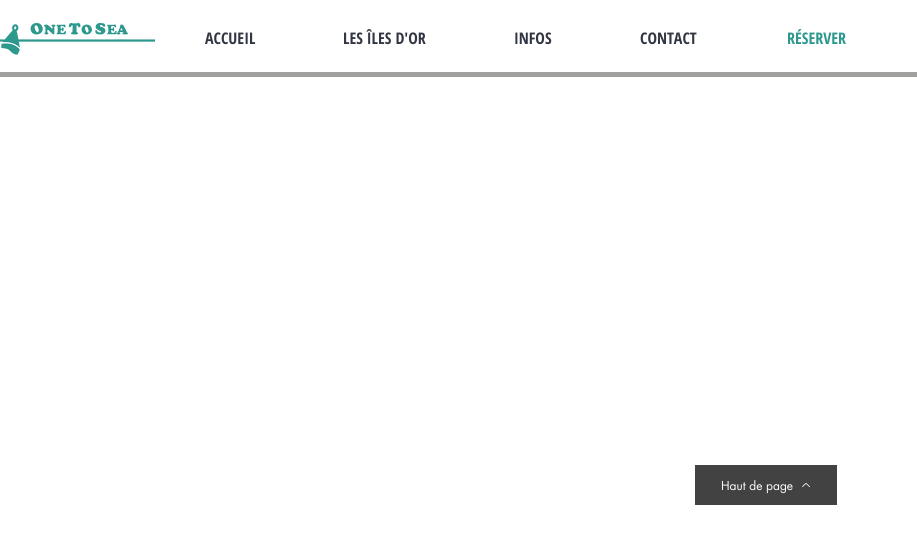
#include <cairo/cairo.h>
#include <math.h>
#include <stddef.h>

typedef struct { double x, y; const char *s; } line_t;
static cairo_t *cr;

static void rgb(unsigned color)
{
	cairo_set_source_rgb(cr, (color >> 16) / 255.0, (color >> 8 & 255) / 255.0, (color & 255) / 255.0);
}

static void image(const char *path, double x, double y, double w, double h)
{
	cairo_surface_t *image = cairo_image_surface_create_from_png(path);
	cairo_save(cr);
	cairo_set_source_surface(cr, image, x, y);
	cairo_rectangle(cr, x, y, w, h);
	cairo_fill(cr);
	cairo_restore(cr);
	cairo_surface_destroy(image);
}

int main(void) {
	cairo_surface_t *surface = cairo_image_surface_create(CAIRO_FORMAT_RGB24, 917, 534);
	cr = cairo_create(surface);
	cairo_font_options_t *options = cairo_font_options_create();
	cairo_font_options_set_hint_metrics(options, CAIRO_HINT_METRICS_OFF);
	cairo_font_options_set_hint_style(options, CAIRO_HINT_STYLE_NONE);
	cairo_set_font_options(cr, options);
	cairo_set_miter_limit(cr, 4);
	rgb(0xffffff);
	cairo_paint(cr);
	image("img/1.png", 0, 22, 155, 33);
	rgb(0xa0a09f);
	cairo_rectangle(cr, 0, 72, 917, 5);
	cairo_fill(cr);
	rgb(0x424242);
	cairo_rectangle(cr, 695, 465, 142, 40);
	cairo_fill(cr);
	image("img/2.png", 802, 483, 8, 5);
	cairo_select_font_face(cr, "Open Sans Condensed", CAIRO_FONT_SLANT_NORMAL, CAIRO_FONT_WEIGHT_BOLD);
	cairo_set_font_size(cr, 16);
	rgb(0x323644);
	{
		static const line_t items[] = {
			{205, 44, "ACCUEIL"},
			{343, 44, "LES ÎLES D'OR"},
			{514, 44, "INFOS"},
			{640, 44, "CONTACT"},
		};
		for (size_t i = 0; i < sizeof items / sizeof *items; i++) {
			cairo_move_to(cr, items[i].x, items[i].y);
			cairo_show_text(cr, items[i].s);
		}
	}
	rgb(0x2d988e);
	cairo_move_to(cr, 787, 44);
	cairo_show_text(cr, "RÉSERVER");
	cairo_select_font_face(cr, "futura", CAIRO_FONT_SLANT_NORMAL, CAIRO_FONT_WEIGHT_NORMAL);
	cairo_set_font_size(cr, 12);
	rgb(0xffffff);
	cairo_move_to(cr, 721, 490);
	cairo_show_text(cr, "Haut de page");
	cairo_surface_write_to_png(surface, "page.png");
	cairo_font_options_destroy(options);
	cairo_destroy(cr);
	cairo_surface_destroy(surface);
	return 0;
}
